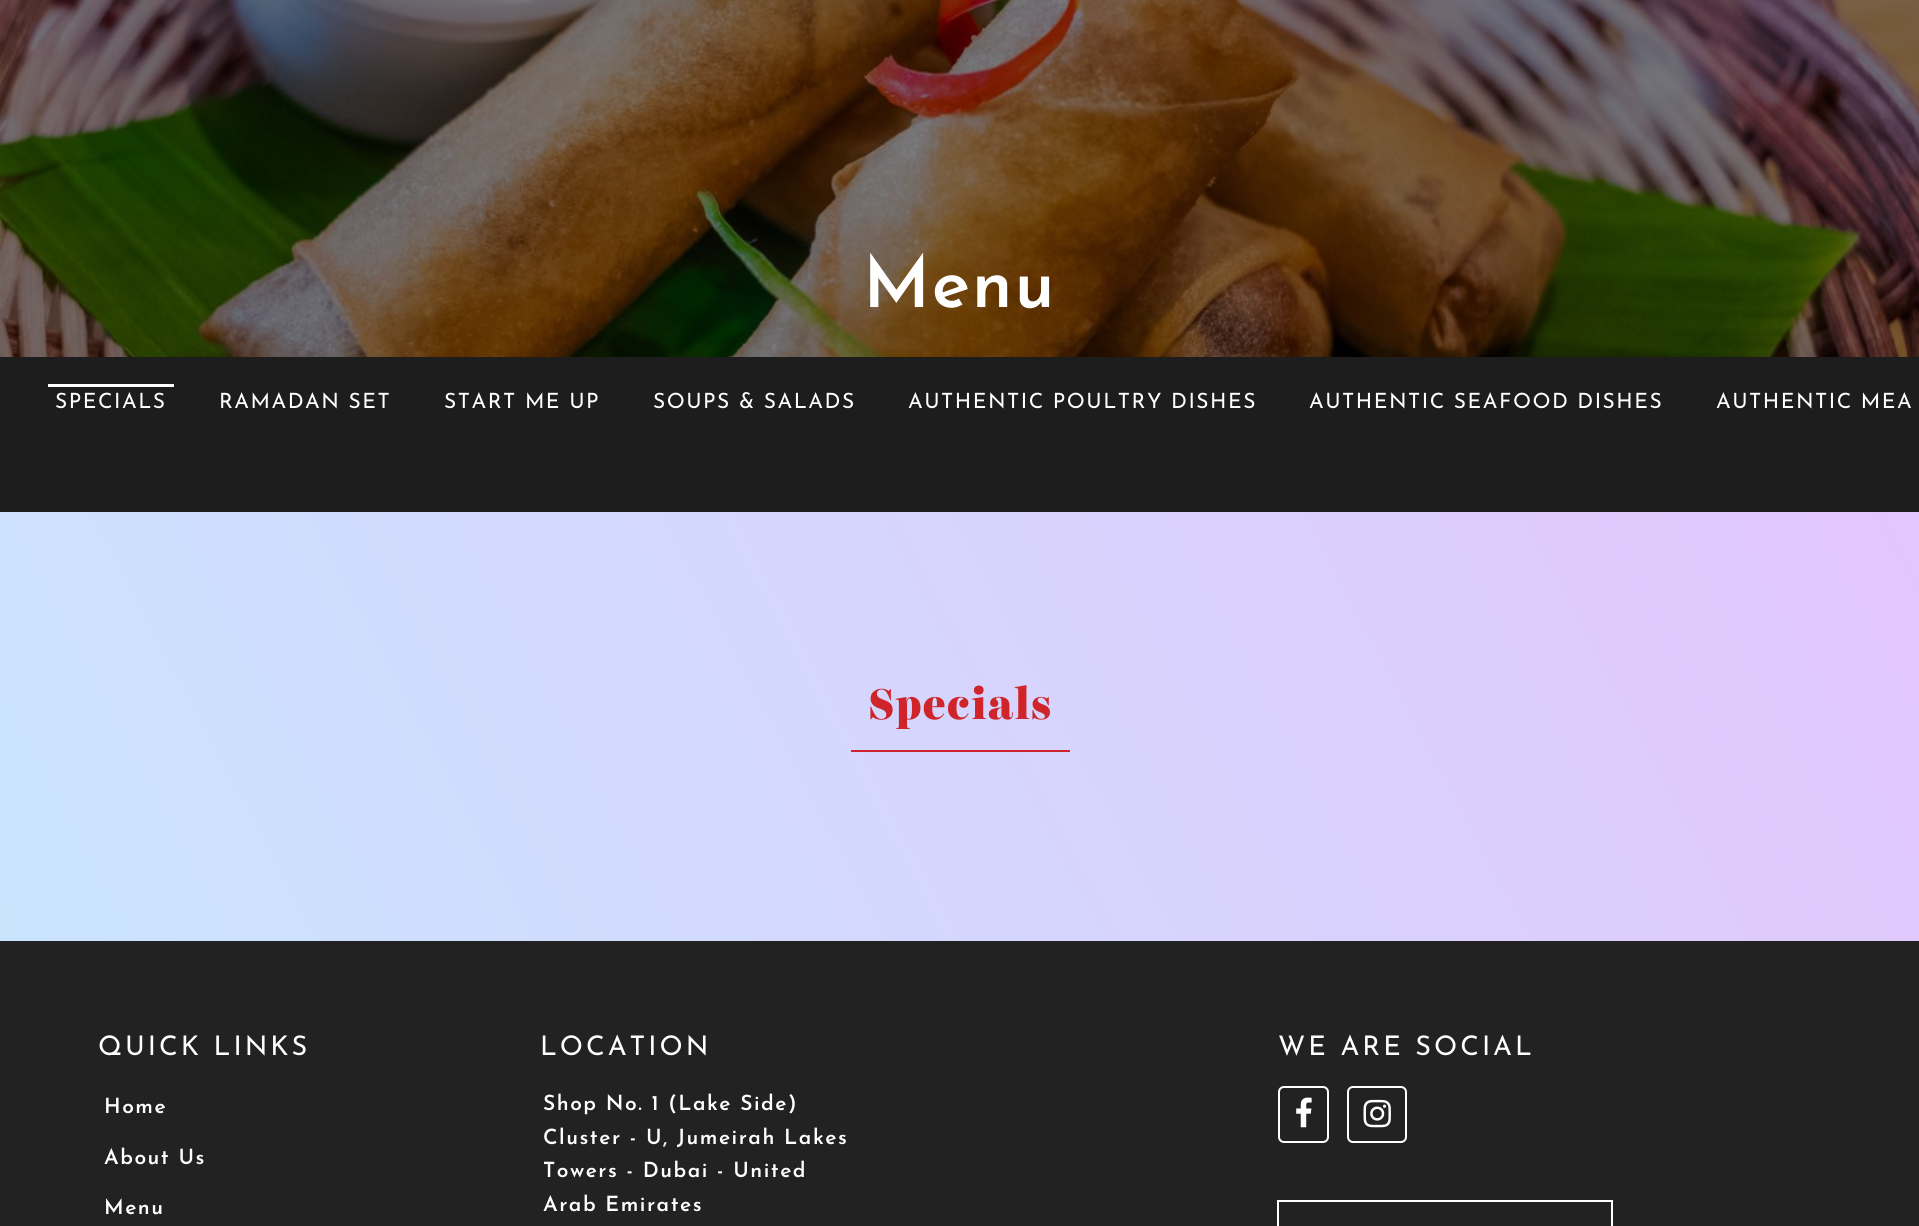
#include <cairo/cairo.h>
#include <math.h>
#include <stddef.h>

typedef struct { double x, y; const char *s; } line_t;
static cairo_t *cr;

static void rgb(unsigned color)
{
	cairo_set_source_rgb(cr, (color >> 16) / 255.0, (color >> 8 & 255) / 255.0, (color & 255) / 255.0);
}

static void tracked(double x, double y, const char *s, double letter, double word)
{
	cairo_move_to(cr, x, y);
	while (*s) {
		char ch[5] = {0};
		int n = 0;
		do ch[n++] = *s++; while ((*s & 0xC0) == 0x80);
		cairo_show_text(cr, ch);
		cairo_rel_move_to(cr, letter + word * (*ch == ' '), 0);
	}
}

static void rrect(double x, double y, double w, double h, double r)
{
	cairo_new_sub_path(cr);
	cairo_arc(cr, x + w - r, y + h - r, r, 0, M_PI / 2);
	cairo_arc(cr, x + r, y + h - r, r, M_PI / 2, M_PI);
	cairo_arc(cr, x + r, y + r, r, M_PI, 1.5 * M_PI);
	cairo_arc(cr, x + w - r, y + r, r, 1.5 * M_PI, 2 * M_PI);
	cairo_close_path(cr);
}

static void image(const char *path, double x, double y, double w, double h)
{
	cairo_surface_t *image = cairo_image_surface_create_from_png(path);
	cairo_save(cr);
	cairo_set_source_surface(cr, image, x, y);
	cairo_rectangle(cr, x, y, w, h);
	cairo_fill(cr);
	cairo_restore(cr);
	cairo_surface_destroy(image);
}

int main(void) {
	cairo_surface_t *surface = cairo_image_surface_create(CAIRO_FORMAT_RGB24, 1919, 1226);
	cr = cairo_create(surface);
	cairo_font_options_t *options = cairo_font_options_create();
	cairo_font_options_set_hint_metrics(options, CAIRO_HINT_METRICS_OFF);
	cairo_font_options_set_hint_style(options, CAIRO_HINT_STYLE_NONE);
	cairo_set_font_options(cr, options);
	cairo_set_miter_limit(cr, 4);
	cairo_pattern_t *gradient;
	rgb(0xffffff);
	cairo_paint(cr);
	image("img/1.png", 0, 0, 1919, 357);
	rgb(0x1d1d1d);
	cairo_rectangle(cr, 0, 357, 1919, 155);
	cairo_fill(cr);
	rgb(0xffffff);
	cairo_rectangle(cr, 48, 384, 126, 3);
	cairo_fill(cr);
	gradient = cairo_pattern_create_linear(123, 1171, 1797, 281);
	cairo_pattern_add_color_stop_rgba(gradient, 0, 0.792, 0.894, 0.996, 1);
	cairo_pattern_add_color_stop_rgba(gradient, 1, 0.886, 0.776, 0.988, 1);
	cairo_set_source(cr, gradient);
	cairo_pattern_destroy(gradient);
	cairo_rectangle(cr, 0, 512, 1919, 429);
	cairo_fill(cr);
	rgb(0xcf2429);
	cairo_rectangle(cr, 851, 750, 219, 2);
	cairo_fill(cr);
	rgb(0x222222);
	cairo_rectangle(cr, 0, 941, 1919, 285);
	cairo_fill(cr);
	rrect(1279, 1087, 49, 55, 5);
	rgb(0xffffff);
	cairo_stroke(cr);
	image("img/2.png", 1296, 1097, 16, 31);
	rrect(1348, 1087, 58, 55, 5);
	cairo_stroke(cr);
	image("img/3.png", 1363, 1099, 28, 29);
	cairo_rectangle(cr, 1278, 1201, 334, 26);
	cairo_stroke(cr);
	cairo_select_font_face(cr, "Josefin Sans SemiBold", CAIRO_FONT_SLANT_NORMAL, CAIRO_FONT_WEIGHT_NORMAL);
	cairo_set_font_size(cr, 72);
	tracked(863, 307, "Menu", 1.5, 0);
	cairo_select_font_face(cr, "Josefin Sans", CAIRO_FONT_SLANT_NORMAL, CAIRO_FONT_WEIGHT_NORMAL);
	cairo_set_font_size(cr, 21);
	{
		static const line_t items[] = {
			{55, 408, "SPECIALS"},
			{219, 408, "RAMADAN SET"},
			{444, 408, "START ME UP"},
			{653, 408, "SOUPS & SALADS"},
			{908, 408, "AUTHENTIC POULTRY DISHES"},
			{1309, 408, "AUTHENTIC SEAFOOD DISHES"},
			{1716, 408, "AUTHENTIC MEA"},
		};
		for (size_t i = 0; i < sizeof items / sizeof *items; i++) {
			tracked(items[i].x, items[i].y, items[i].s, 1.5, 0);
		}
	}
	cairo_select_font_face(cr, "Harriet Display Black", CAIRO_FONT_SLANT_NORMAL, CAIRO_FONT_WEIGHT_NORMAL);
	cairo_set_font_size(cr, 43.5);
	rgb(0xcf2429);
	tracked(868, 719, "Specials", 1.5, 0);
	cairo_select_font_face(cr, "Josefin Sans", CAIRO_FONT_SLANT_NORMAL, CAIRO_FONT_WEIGHT_NORMAL);
	cairo_set_font_size(cr, 27);
	rgb(0xffffff);
	tracked(98, 1055, "QUICK LINKS", 3, 0);
	cairo_select_font_face(cr, "Josefin Sans SemiBold", CAIRO_FONT_SLANT_NORMAL, CAIRO_FONT_WEIGHT_NORMAL);
	cairo_set_font_size(cr, 21);
	{
		static const line_t items[] = {
			{104, 1113, "Home"},
			{104, 1164, "About Us"},
			{104, 1214, "Menu"},
		};
		for (size_t i = 0; i < sizeof items / sizeof *items; i++) {
			tracked(items[i].x, items[i].y, items[i].s, 1.5, 0);
		}
	}
	cairo_select_font_face(cr, "Josefin Sans", CAIRO_FONT_SLANT_NORMAL, CAIRO_FONT_WEIGHT_NORMAL);
	cairo_set_font_size(cr, 27);
	tracked(540, 1055, "LOCATION", 3, 0);
	cairo_select_font_face(cr, "Josefin Sans SemiBold", CAIRO_FONT_SLANT_NORMAL, CAIRO_FONT_WEIGHT_NORMAL);
	cairo_set_font_size(cr, 21);
	{
		static const line_t items[] = {
			{543, 1110, "Shop No. 1 (Lake Side)"},
			{543, 1144, "Cluster - U, Jumeirah Lakes"},
			{543, 1177, "Towers - Dubai - United"},
			{543, 1211, "Arab Emirates"},
		};
		for (size_t i = 0; i < sizeof items / sizeof *items; i++) {
			tracked(items[i].x, items[i].y, items[i].s, 1.5, 0);
		}
	}
	cairo_select_font_face(cr, "Josefin Sans", CAIRO_FONT_SLANT_NORMAL, CAIRO_FONT_WEIGHT_NORMAL);
	cairo_set_font_size(cr, 27);
	tracked(1278, 1055, "WE ARE SOCIAL", 3, 0);
	cairo_surface_write_to_png(surface, "page.png");
	cairo_font_options_destroy(options);
	cairo_destroy(cr);
	cairo_surface_destroy(surface);
	return 0;
}
